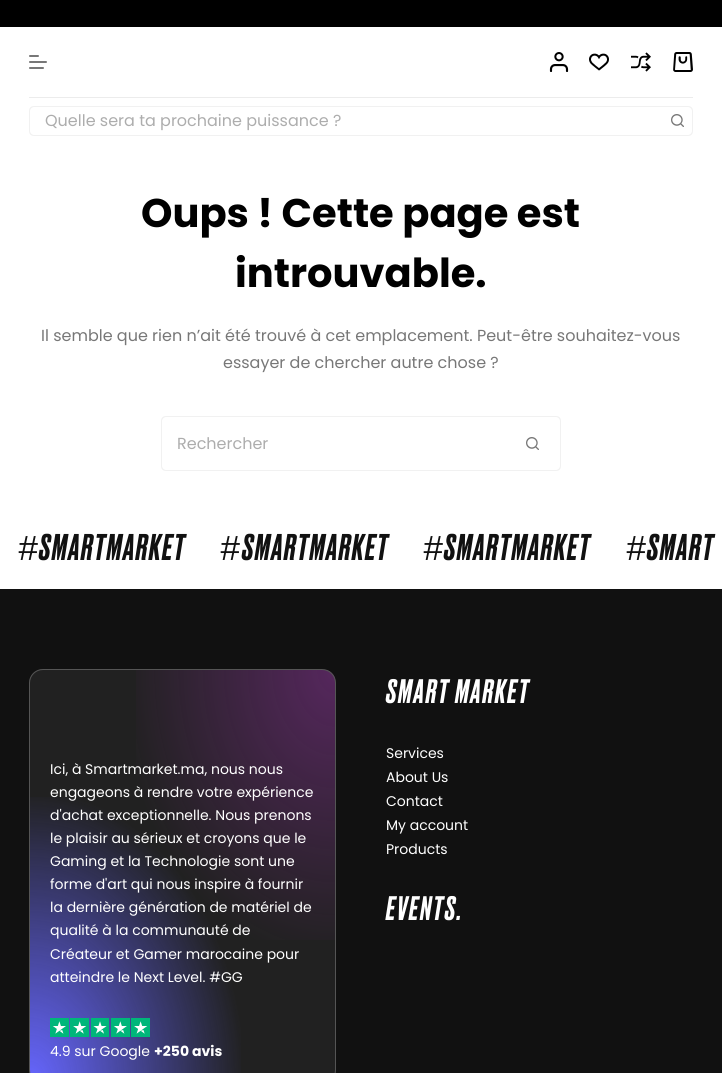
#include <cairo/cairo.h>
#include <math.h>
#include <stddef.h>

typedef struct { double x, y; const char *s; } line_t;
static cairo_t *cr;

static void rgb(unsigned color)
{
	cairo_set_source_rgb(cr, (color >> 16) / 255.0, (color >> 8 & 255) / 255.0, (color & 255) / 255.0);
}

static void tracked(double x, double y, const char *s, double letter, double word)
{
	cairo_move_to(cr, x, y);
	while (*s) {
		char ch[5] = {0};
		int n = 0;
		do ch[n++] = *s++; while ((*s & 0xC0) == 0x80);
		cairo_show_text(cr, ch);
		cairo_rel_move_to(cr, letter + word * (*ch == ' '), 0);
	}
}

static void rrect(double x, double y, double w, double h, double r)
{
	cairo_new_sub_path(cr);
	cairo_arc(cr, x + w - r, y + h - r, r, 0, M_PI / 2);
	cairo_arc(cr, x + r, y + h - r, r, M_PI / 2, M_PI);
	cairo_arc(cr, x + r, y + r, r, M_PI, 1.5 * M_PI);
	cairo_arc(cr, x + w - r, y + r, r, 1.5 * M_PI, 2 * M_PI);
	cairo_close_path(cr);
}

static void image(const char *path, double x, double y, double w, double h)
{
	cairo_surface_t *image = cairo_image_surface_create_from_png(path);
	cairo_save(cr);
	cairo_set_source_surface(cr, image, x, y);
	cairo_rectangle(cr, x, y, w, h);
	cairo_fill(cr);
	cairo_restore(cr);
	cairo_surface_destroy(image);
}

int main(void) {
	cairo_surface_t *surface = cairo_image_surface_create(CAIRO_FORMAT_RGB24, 722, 1073);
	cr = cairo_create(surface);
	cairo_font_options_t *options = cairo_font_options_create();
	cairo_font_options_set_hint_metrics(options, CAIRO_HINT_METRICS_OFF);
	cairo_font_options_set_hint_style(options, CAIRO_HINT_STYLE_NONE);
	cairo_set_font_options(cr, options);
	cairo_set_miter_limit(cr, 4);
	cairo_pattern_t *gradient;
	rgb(0xffffff);
	cairo_paint(cr);
	rgb(0x000000);
	cairo_rectangle(cr, 0, 0, 722, 27);
	cairo_fill(cr);
	rgb(0x777777);
	rrect(29, 55, 10, 2, 1);
	cairo_fill(cr);
	rrect(29, 61, 18, 2, 1);
	cairo_fill(cr);
	rrect(29, 67, 15, 2, 1);
	cairo_fill(cr);
	image("img/1.png", 549, 52, 20, 20);
	image("img/2.png", 589, 53, 20, 18);
	image("img/3.png", 631, 52, 20, 20);
	image("img/4.png", 673, 52, 20, 20);
	rgb(0xececec);
	cairo_rectangle(cr, 29, 97, 664, 1);
	cairo_fill(cr);
	rgb(0xf1f1f1);
	cairo_set_fill_rule(cr, CAIRO_FILL_RULE_EVEN_ODD);
	cairo_new_path(cr);
	cairo_move_to(cr, 34, 106);
	cairo_line_to(cr, 663, 106);
	cairo_line_to(cr, 663, 136);
	cairo_line_to(cr, 34, 136);
	cairo_curve_to(cr, 31, 136, 29, 134, 29, 131);
	cairo_line_to(cr, 29, 111);
	cairo_curve_to(cr, 29, 108, 31, 106, 34, 106);
	cairo_close_path(cr);
	cairo_move_to(cr, 34, 107);
	cairo_line_to(cr, 663, 107);
	cairo_line_to(cr, 663, 135);
	cairo_line_to(cr, 34, 135);
	cairo_curve_to(cr, 32, 135, 30, 133, 30, 131);
	cairo_line_to(cr, 30, 111);
	cairo_curve_to(cr, 30, 109, 32, 107, 34, 107);
	cairo_close_path(cr);
	cairo_fill(cr);
	cairo_new_path(cr);
	cairo_move_to(cr, 663, 106);
	cairo_line_to(cr, 688, 106);
	cairo_curve_to(cr, 691, 106, 693, 108, 693, 111);
	cairo_line_to(cr, 693, 131);
	cairo_curve_to(cr, 693, 134, 691, 136, 688, 136);
	cairo_line_to(cr, 663, 136);
	cairo_close_path(cr);
	cairo_move_to(cr, 663, 107);
	cairo_line_to(cr, 688, 107);
	cairo_curve_to(cr, 690, 107, 692, 109, 692, 111);
	cairo_line_to(cr, 692, 131);
	cairo_curve_to(cr, 692, 133, 690, 135, 688, 135);
	cairo_line_to(cr, 663, 135);
	cairo_close_path(cr);
	cairo_fill(cr);
	image("img/5.png", 671, 114, 13, 13);
	cairo_new_path(cr);
	cairo_move_to(cr, 166, 416);
	cairo_line_to(cr, 506, 416);
	cairo_line_to(cr, 506, 471);
	cairo_line_to(cr, 166, 471);
	cairo_curve_to(cr, 163, 471, 161, 469, 161, 466);
	cairo_line_to(cr, 161, 421);
	cairo_curve_to(cr, 161, 418, 163, 416, 166, 416);
	cairo_close_path(cr);
	cairo_move_to(cr, 166, 417);
	cairo_line_to(cr, 506, 417);
	cairo_line_to(cr, 506, 470);
	cairo_line_to(cr, 166, 470);
	cairo_curve_to(cr, 164, 470, 162, 468, 162, 466);
	cairo_line_to(cr, 162, 421);
	cairo_curve_to(cr, 162, 419, 164, 417, 166, 417);
	cairo_close_path(cr);
	cairo_fill(cr);
	cairo_new_path(cr);
	cairo_move_to(cr, 506, 416);
	cairo_line_to(cr, 556, 416);
	cairo_curve_to(cr, 559, 416, 561, 418, 561, 421);
	cairo_line_to(cr, 561, 466);
	cairo_curve_to(cr, 561, 469, 559, 471, 556, 471);
	cairo_line_to(cr, 506, 471);
	cairo_close_path(cr);
	cairo_move_to(cr, 506, 417);
	cairo_line_to(cr, 556, 417);
	cairo_curve_to(cr, 558, 417, 560, 419, 560, 421);
	cairo_line_to(cr, 560, 466);
	cairo_curve_to(cr, 560, 468, 558, 470, 556, 470);
	cairo_line_to(cr, 506, 470);
	cairo_close_path(cr);
	cairo_fill(cr);
	image("img/5.png", 526, 437, 13, 13);
	rgb(0x111111);
	cairo_rectangle(cr, 0, 589, 722, 484);
	cairo_fill(cr);
	rgb(0x212121);
	rrect(29, 669, 307, 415, 14);
	cairo_fill(cr);
	cairo_save(cr);
	cairo_set_fill_rule(cr, CAIRO_FILL_RULE_WINDING);
	rrect(29, 669, 307, 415, 14);
	cairo_clip(cr);
	gradient = cairo_pattern_create_radial(0, 0, 0, 0, 0, 1);
	cairo_pattern_set_matrix(gradient, &(cairo_matrix_t){1.0 / 431, 0, 0, 1.0 / 584, -1.0 * 335 / 431, -1.0 * 670 / 584});
	cairo_pattern_add_color_stop_rgba(gradient, 0, 0.867, 0.212, 0.969, 0.28);
	cairo_pattern_add_color_stop_rgba(gradient, 0.5, 0.867, 0.212, 0.969, 0);
	cairo_set_source(cr, gradient);
	cairo_pattern_destroy(gradient);
	cairo_rectangle(cr, 136, 670, 199, 270);
	cairo_fill(cr);
	cairo_restore(cr);
	gradient = cairo_pattern_create_radial(0, 0, 0, 0, 0, 1);
	cairo_pattern_set_matrix(gradient, &(cairo_matrix_t){1.0 / 431, 0, 0, 1.0 / 584, -1.0 * 30 / 431, -1.0 * 1083 / 584});
	cairo_pattern_add_color_stop_rgba(gradient, 0, 0.4, 0.4, 1, 1);
	cairo_pattern_add_color_stop_rgba(gradient, 0.5, 0.4, 0.4, 1, 0);
	cairo_set_source(cr, gradient);
	cairo_pattern_destroy(gradient);
	cairo_rectangle(cr, 30, 797, 211, 276);
	cairo_fill(cr);
	rrect(29.5, 669.5, 306, 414, 13.5);
	rgb(0x555555);
	cairo_set_line_width(cr, 1);
	cairo_stroke(cr);
	image("img/6.png", 50, 1018, 100, 19);
	cairo_select_font_face(cr, "Poppins", CAIRO_FONT_SLANT_NORMAL, CAIRO_FONT_WEIGHT_NORMAL);
	cairo_set_font_size(cr, 16);
	rgb(0xadadad);
	cairo_move_to(cr, 45, 126);
	cairo_show_text(cr, "Quelle sera ta prochaine puissance ?");
	cairo_select_font_face(cr, "Poppins", CAIRO_FONT_SLANT_NORMAL, CAIRO_FONT_WEIGHT_BOLD);
	cairo_set_font_size(cr, 40);
	rgb(0x000000);
	cairo_move_to(cr, 141, 227);
	cairo_show_text(cr, "Oups ! Cette page est");
	cairo_move_to(cr, 235, 287);
	cairo_show_text(cr, "introuvable.");
	cairo_select_font_face(cr, "Poppins", CAIRO_FONT_SLANT_NORMAL, CAIRO_FONT_WEIGHT_NORMAL);
	cairo_set_font_size(cr, 16);
	rgb(0x777777);
	cairo_move_to(cr, 41, 341);
	cairo_show_text(cr, "Il semble que rien n’ait été trouvé à cet emplacement. Peut-être souhaitez-vous");
	cairo_move_to(cr, 223, 368);
	cairo_show_text(cr, "essayer de chercher autre chose ?");
	rgb(0xadadad);
	cairo_move_to(cr, 177, 449);
	cairo_show_text(cr, "Rechercher");
	cairo_select_font_face(cr, "Liberation Sans", CAIRO_FONT_SLANT_ITALIC, CAIRO_FONT_WEIGHT_NORMAL);
	cairo_set_font_size(cr, 35);
	rgb(0x111111);
	tracked(18, 560, "#", 1.75, 0);
	cairo_select_font_face(cr, "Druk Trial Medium", CAIRO_FONT_SLANT_ITALIC, CAIRO_FONT_WEIGHT_NORMAL);
	tracked(39, 560, "SMARTMARKET", 1.75, 0);
	cairo_select_font_face(cr, "Liberation Sans", CAIRO_FONT_SLANT_ITALIC, CAIRO_FONT_WEIGHT_NORMAL);
	tracked(220, 560, "#", 1.75, 0);
	cairo_select_font_face(cr, "Druk Trial Medium", CAIRO_FONT_SLANT_ITALIC, CAIRO_FONT_WEIGHT_NORMAL);
	tracked(242, 560, "SMARTMARKET", 1.75, 0);
	cairo_select_font_face(cr, "Liberation Sans", CAIRO_FONT_SLANT_ITALIC, CAIRO_FONT_WEIGHT_NORMAL);
	tracked(423, 560, "#", 1.75, 0);
	cairo_select_font_face(cr, "Druk Trial Medium", CAIRO_FONT_SLANT_ITALIC, CAIRO_FONT_WEIGHT_NORMAL);
	tracked(444, 560, "SMARTMARKET", 1.75, 0);
	cairo_select_font_face(cr, "Liberation Sans", CAIRO_FONT_SLANT_ITALIC, CAIRO_FONT_WEIGHT_NORMAL);
	tracked(626, 560, "#", 1.75, 0);
	cairo_select_font_face(cr, "Druk Trial Medium", CAIRO_FONT_SLANT_ITALIC, CAIRO_FONT_WEIGHT_NORMAL);
	tracked(647, 560, "SMART", 1.75, 0);
	cairo_select_font_face(cr, "Poppins", CAIRO_FONT_SLANT_NORMAL, CAIRO_FONT_WEIGHT_NORMAL);
	cairo_set_font_size(cr, 14);
	rgb(0xffffff);
	{
		static const line_t items[] = {
			{50, 774, "Ici, à Smartmarket.ma, nous nous"},
			{50, 797, "engageons à rendre votre expérience"},
			{50, 820, "d'achat exceptionnelle. Nous prenons"},
			{50, 843, "le plaisir au sérieux et croyons que le"},
			{50, 866, "Gaming et la Technologie sont une"},
			{50, 889, "forme d'art qui nous inspire à fournir"},
			{50, 912, "la dernière génération de matériel de"},
			{50, 935, "qualité à la communauté de"},
			{50, 959, "Créateur et Gamer marocaine pour"},
			{50, 982, "atteindre le Next Level. #GG"},
			{50, 1056, "4.9 sur Google"},
		};
		for (size_t i = 0; i < sizeof items / sizeof *items; i++) {
			cairo_move_to(cr, items[i].x, items[i].y);
			cairo_show_text(cr, items[i].s);
		}
	}
	cairo_select_font_face(cr, "Poppins", CAIRO_FONT_SLANT_NORMAL, CAIRO_FONT_WEIGHT_BOLD);
	cairo_move_to(cr, 154, 1056);
	cairo_show_text(cr, "+250 avis");
	cairo_select_font_face(cr, "Druk Trial Medium", CAIRO_FONT_SLANT_ITALIC, CAIRO_FONT_WEIGHT_NORMAL);
	cairo_set_font_size(cr, 32);
	tracked(386, 703, "SMART MARKET", 2, 0);
	cairo_select_font_face(cr, "Poppins", CAIRO_FONT_SLANT_NORMAL, CAIRO_FONT_WEIGHT_NORMAL);
	cairo_set_font_size(cr, 14);
	{
		static const line_t items[] = {
			{386, 758, "Services"},
			{386, 782, "About Us"},
			{386, 806, "Contact"},
			{386, 830, "My account"},
			{386, 854, "Products"},
		};
		for (size_t i = 0; i < sizeof items / sizeof *items; i++) {
			cairo_move_to(cr, items[i].x, items[i].y);
			cairo_show_text(cr, items[i].s);
		}
	}
	cairo_select_font_face(cr, "Druk Trial Medium", CAIRO_FONT_SLANT_ITALIC, CAIRO_FONT_WEIGHT_NORMAL);
	cairo_set_font_size(cr, 32);
	tracked(386, 920, "EVENTS.", 2, 0);
	cairo_surface_write_to_png(surface, "page.png");
	cairo_font_options_destroy(options);
	cairo_destroy(cr);
	cairo_surface_destroy(surface);
	return 0;
}
